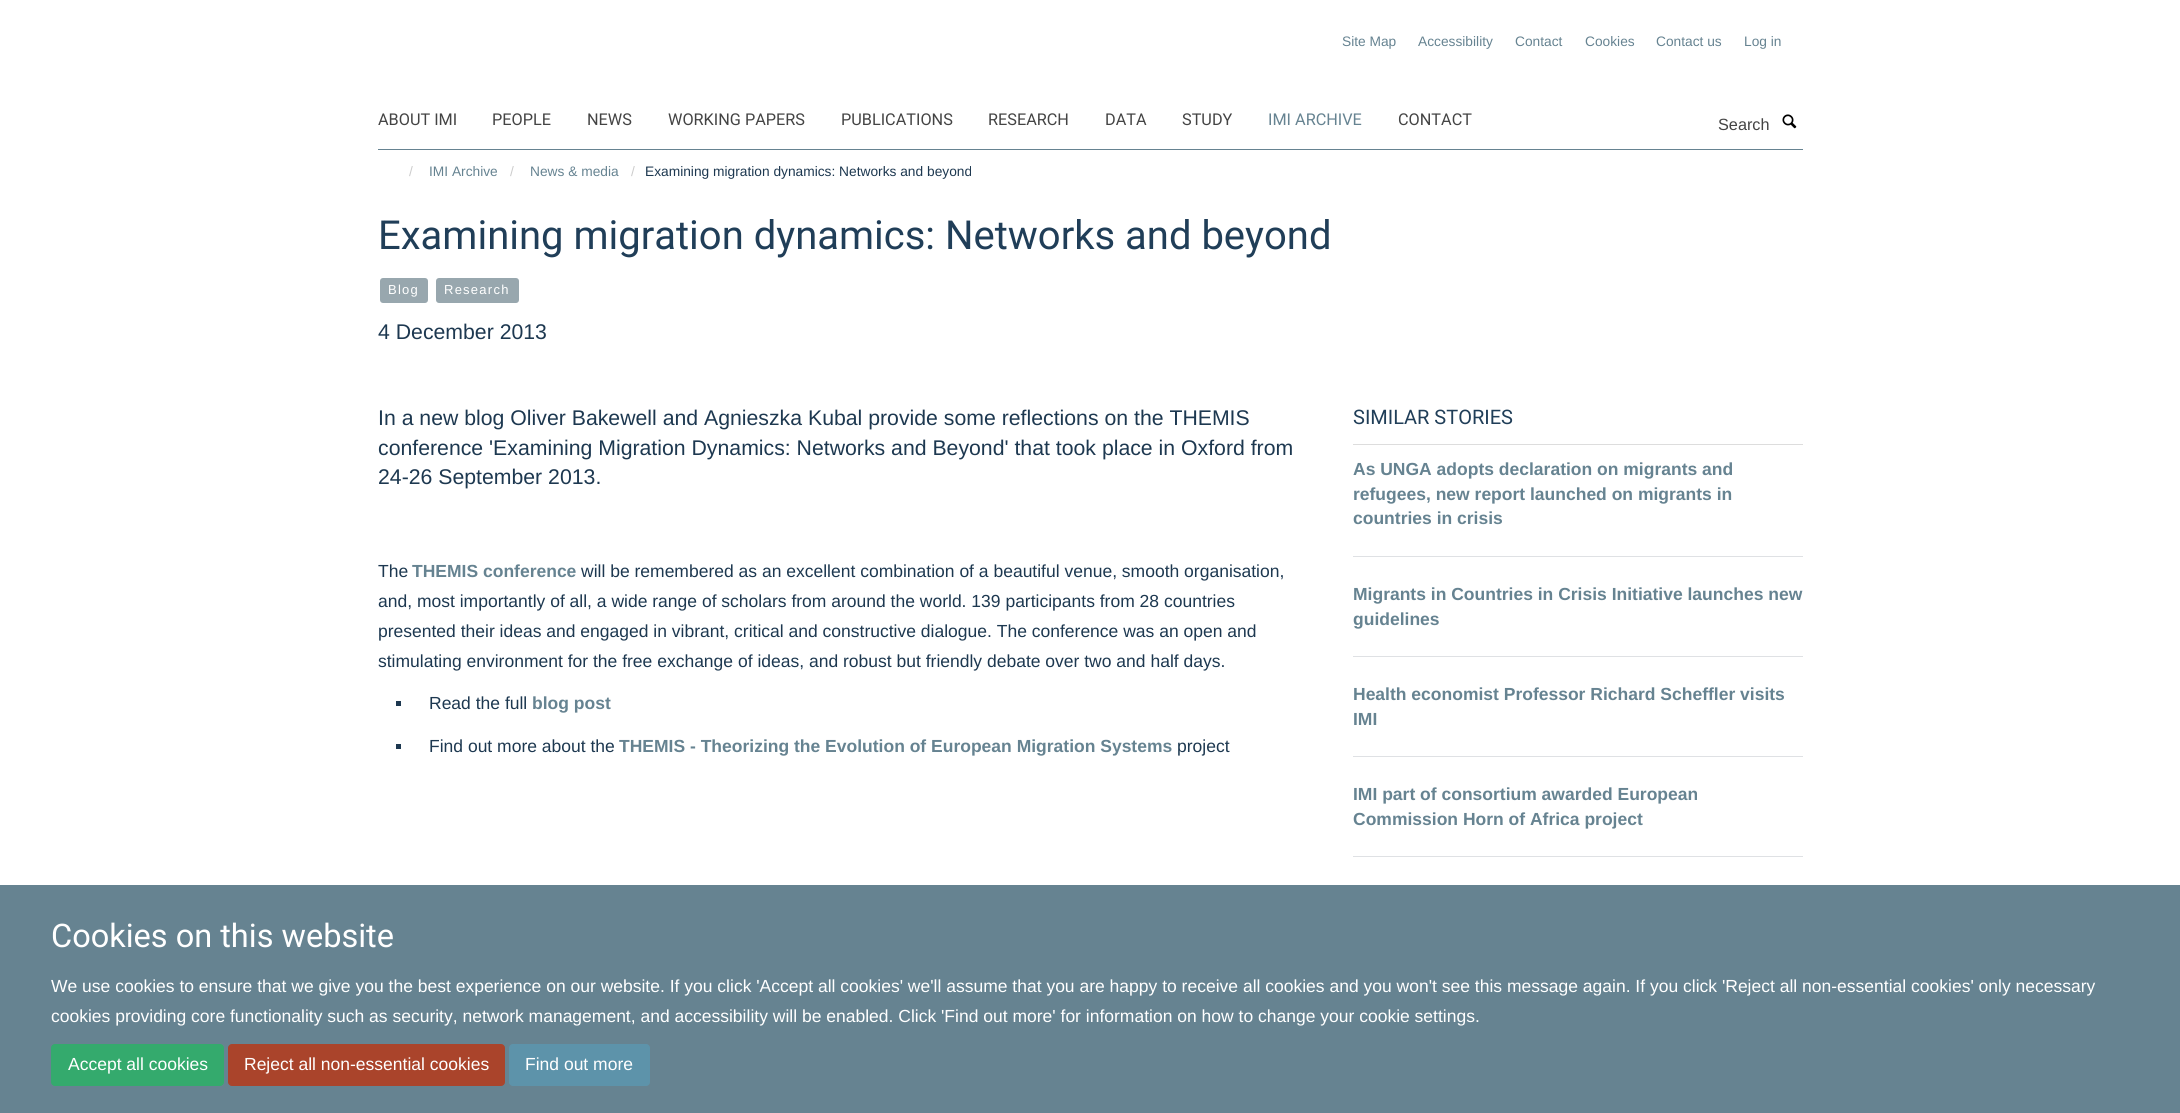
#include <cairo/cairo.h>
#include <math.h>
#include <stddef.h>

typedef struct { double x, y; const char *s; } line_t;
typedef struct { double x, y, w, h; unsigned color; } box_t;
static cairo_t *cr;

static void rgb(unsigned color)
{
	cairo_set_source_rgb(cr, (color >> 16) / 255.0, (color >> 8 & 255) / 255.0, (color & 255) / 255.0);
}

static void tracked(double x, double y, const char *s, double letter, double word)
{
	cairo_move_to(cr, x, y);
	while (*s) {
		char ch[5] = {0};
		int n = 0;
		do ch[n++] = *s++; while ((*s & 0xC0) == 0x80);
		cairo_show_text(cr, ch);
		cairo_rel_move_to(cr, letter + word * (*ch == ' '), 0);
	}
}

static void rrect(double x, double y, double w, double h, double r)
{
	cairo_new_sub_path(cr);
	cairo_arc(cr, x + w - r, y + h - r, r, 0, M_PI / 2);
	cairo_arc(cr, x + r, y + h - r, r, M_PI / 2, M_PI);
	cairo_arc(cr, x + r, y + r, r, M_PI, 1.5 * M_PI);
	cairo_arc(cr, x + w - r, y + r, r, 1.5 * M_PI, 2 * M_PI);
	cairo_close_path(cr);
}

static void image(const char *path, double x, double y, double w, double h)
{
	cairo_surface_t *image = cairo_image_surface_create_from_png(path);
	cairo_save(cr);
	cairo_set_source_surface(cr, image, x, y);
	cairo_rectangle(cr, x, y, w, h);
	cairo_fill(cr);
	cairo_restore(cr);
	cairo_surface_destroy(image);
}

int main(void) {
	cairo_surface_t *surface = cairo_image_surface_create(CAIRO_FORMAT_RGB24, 2180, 1113);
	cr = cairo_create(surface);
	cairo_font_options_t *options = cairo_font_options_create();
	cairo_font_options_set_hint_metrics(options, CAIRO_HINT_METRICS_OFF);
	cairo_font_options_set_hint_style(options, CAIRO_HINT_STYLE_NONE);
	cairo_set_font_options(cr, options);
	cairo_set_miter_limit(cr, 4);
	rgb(0xffffff);
	cairo_paint(cr);
	rgb(0x668391);
	cairo_rectangle(cr, 378, 149, 1425, 1);
	cairo_fill(cr);
	image("img/1.png", 1782, 114, 15, 15);
	rgb(0x98a7ae);
	rrect(380, 278, 48, 25, 3);
	cairo_fill(cr);
	rrect(436, 278, 83, 25, 3);
	cairo_fill(cr);
	{
		static const box_t items[] = {
			{396, 701, 5, 5, 0x1d3850},
			{396, 744, 5, 5, 0x1d3850},
			{1353, 444, 450, 1, 0xdddddd},
			{1353, 556, 450, 1, 0xdfe1e4},
			{1353, 656, 450, 1, 0xdfe1e4},
			{1353, 756, 450, 1, 0xdfe1e4},
			{1353, 856, 450, 1, 0xdfe1e4},
			{0, 885, 2180, 228, 0x668391},
		};
		for (size_t i = 0; i < sizeof items / sizeof *items; i++) {
			rgb(items[i].color);
			cairo_rectangle(cr, items[i].x, items[i].y, items[i].w, items[i].h);
			cairo_fill(cr);
		}
	}
	rgb(0x34aa6d);
	rrect(51.5, 1044.5, 172, 41, 3.5);
	cairo_fill_preserve(cr);
	cairo_set_line_width(cr, 1);
	cairo_stroke(cr);
	rgb(0xaa442b);
	rrect(228.5, 1044.5, 276, 41, 3.5);
	cairo_fill_preserve(cr);
	cairo_stroke(cr);
	rgb(0x5d93aa);
	rrect(509.5, 1044.5, 140, 41, 3.5);
	cairo_fill_preserve(cr);
	cairo_stroke(cr);
	cairo_select_font_face(cr, "Liberation Sans", CAIRO_FONT_SLANT_NORMAL, CAIRO_FONT_WEIGHT_NORMAL);
	cairo_set_font_size(cr, 13.75);
	rgb(0x668391);
	{
		static const line_t items[] = {
			{1342, 46, "Site Map"},
			{1418, 46, "Accessibility"},
			{1515, 46, "Contact"},
			{1585, 46, "Cookies"},
			{1656, 46, "Contact us"},
			{1744, 46, "Log in"},
		};
		for (size_t i = 0; i < sizeof items / sizeof *items; i++) {
			cairo_move_to(cr, items[i].x, items[i].y);
			cairo_show_text(cr, items[i].s);
		}
	}
	cairo_select_font_face(cr, "Roboto", CAIRO_FONT_SLANT_NORMAL, CAIRO_FONT_WEIGHT_NORMAL);
	cairo_set_font_size(cr, 16.25);
	rgb(0x444444);
	{
		static const line_t items[] = {
			{378, 125, "ABOUT IMI"},
			{492, 125, "PEOPLE"},
			{587, 125, "NEWS"},
			{668, 125, "WORKING PAPERS"},
			{841, 125, "PUBLICATIONS"},
			{988, 125, "RESEARCH"},
			{1105, 125, "DATA"},
			{1182, 125, "STUDY"},
		};
		for (size_t i = 0; i < sizeof items / sizeof *items; i++) {
			cairo_move_to(cr, items[i].x, items[i].y);
			cairo_show_text(cr, items[i].s);
		}
	}
	rgb(0x668391);
	cairo_move_to(cr, 1268, 125);
	cairo_show_text(cr, "IMI ARCHIVE");
	rgb(0x444444);
	cairo_move_to(cr, 1398, 125);
	cairo_show_text(cr, "CONTACT");
	cairo_select_font_face(cr, "Liberation Sans", CAIRO_FONT_SLANT_NORMAL, CAIRO_FONT_WEIGHT_NORMAL);
	cairo_move_to(cr, 1718, 130);
	cairo_show_text(cr, "Search");
	cairo_set_font_size(cr, 13.75);
	rgb(0xcccccc);
	cairo_move_to(cr, 409, 176);
	cairo_show_text(cr, "/");
	rgb(0x668391);
	cairo_move_to(cr, 429, 176);
	cairo_show_text(cr, "IMI Archive");
	rgb(0xcccccc);
	cairo_move_to(cr, 510, 176);
	cairo_show_text(cr, "/");
	rgb(0x668391);
	cairo_move_to(cr, 530, 176);
	cairo_show_text(cr, "News & media");
	rgb(0xcccccc);
	cairo_move_to(cr, 631, 176);
	cairo_show_text(cr, "/");
	rgb(0x1d3850);
	cairo_move_to(cr, 645, 176);
	cairo_show_text(cr, "Examining migration dynamics: Networks and beyond");
	cairo_select_font_face(cr, "Roboto", CAIRO_FONT_SLANT_NORMAL, CAIRO_FONT_WEIGHT_NORMAL);
	cairo_set_font_size(cr, 40);
	rgb(0x203e58);
	cairo_move_to(cr, 378, 249);
	cairo_show_text(cr, "Examining migration dynamics: Networks and beyond");
	cairo_select_font_face(cr, "Liberation Sans", CAIRO_FONT_SLANT_NORMAL, CAIRO_FONT_WEIGHT_NORMAL);
	cairo_set_font_size(cr, 13);
	rgb(0xffffff);
	tracked(388, 294, "Blog", 1.25, 0);
	tracked(444, 294, "Research", 1.25, 0);
	cairo_set_font_size(cr, 21.25);
	rgb(0x1d3850);
	{
		static const line_t items[] = {
			{378, 339, "4 December 2013"},
			{378, 425, "In a new blog Oliver Bakewell and Agnieszka Kubal provide some reflections on the THEMIS"},
			{378, 455, "conference 'Examining Migration Dynamics: Networks and Beyond' that took place in Oxford from"},
			{378, 484, "24-26 September 2013."},
		};
		for (size_t i = 0; i < sizeof items / sizeof *items; i++) {
			cairo_move_to(cr, items[i].x, items[i].y);
			cairo_show_text(cr, items[i].s);
		}
	}
	cairo_set_font_size(cr, 17.5);
	cairo_move_to(cr, 378, 577);
	cairo_show_text(cr, "The");
	cairo_select_font_face(cr, "Liberation Sans", CAIRO_FONT_SLANT_NORMAL, CAIRO_FONT_WEIGHT_BOLD);
	rgb(0x668391);
	cairo_move_to(cr, 412, 577);
	cairo_show_text(cr, "THEMIS conference");
	cairo_select_font_face(cr, "Liberation Sans", CAIRO_FONT_SLANT_NORMAL, CAIRO_FONT_WEIGHT_NORMAL);
	rgb(0x1d3850);
	{
		static const line_t items[] = {
			{581, 577, "will be remembered as an excellent combination of a beautiful venue, smooth organisation,"},
			{378, 607, "and, most importantly of all, a wide range of scholars from around the world. 139 participants from 28 countries"},
			{378, 637, "presented their ideas and engaged in vibrant, critical and constructive dialogue. The conference was an open and"},
			{378, 667, "stimulating environment for the free exchange of ideas, and robust but friendly debate over two and half days."},
			{429, 709, "Read the full"},
		};
		for (size_t i = 0; i < sizeof items / sizeof *items; i++) {
			cairo_move_to(cr, items[i].x, items[i].y);
			cairo_show_text(cr, items[i].s);
		}
	}
	cairo_select_font_face(cr, "Liberation Sans", CAIRO_FONT_SLANT_NORMAL, CAIRO_FONT_WEIGHT_BOLD);
	rgb(0x668391);
	cairo_move_to(cr, 532, 709);
	cairo_show_text(cr, "blog post");
	cairo_select_font_face(cr, "Liberation Sans", CAIRO_FONT_SLANT_NORMAL, CAIRO_FONT_WEIGHT_NORMAL);
	rgb(0x1d3850);
	cairo_move_to(cr, 429, 752);
	cairo_show_text(cr, "Find out more about the");
	cairo_select_font_face(cr, "Liberation Sans", CAIRO_FONT_SLANT_NORMAL, CAIRO_FONT_WEIGHT_BOLD);
	rgb(0x668391);
	cairo_move_to(cr, 619, 752);
	cairo_show_text(cr, "THEMIS - Theorizing the Evolution of European Migration Systems");
	cairo_select_font_face(cr, "Liberation Sans", CAIRO_FONT_SLANT_NORMAL, CAIRO_FONT_WEIGHT_NORMAL);
	rgb(0x1d3850);
	cairo_move_to(cr, 1177, 752);
	cairo_show_text(cr, "project");
	cairo_select_font_face(cr, "Roboto", CAIRO_FONT_SLANT_NORMAL, CAIRO_FONT_WEIGHT_NORMAL);
	cairo_set_font_size(cr, 20);
	rgb(0x203e58);
	cairo_move_to(cr, 1353, 424);
	cairo_show_text(cr, "SIMILAR STORIES");
	cairo_select_font_face(cr, "Liberation Sans", CAIRO_FONT_SLANT_NORMAL, CAIRO_FONT_WEIGHT_BOLD);
	cairo_set_font_size(cr, 17.5);
	rgb(0x668391);
	{
		static const line_t items[] = {
			{1353, 475, "As UNGA adopts declaration on migrants and"},
			{1353, 500, "refugees, new report launched on migrants in"},
			{1353, 524, "countries in crisis"},
			{1353, 600, "Migrants in Countries in Crisis Initiative launches new"},
			{1353, 625, "guidelines"},
			{1353, 700, "Health economist Professor Richard Scheffler visits"},
			{1353, 725, "IMI"},
			{1353, 800, "IMI part of consortium awarded European"},
			{1353, 825, "Commission Horn of Africa project"},
		};
		for (size_t i = 0; i < sizeof items / sizeof *items; i++) {
			cairo_move_to(cr, items[i].x, items[i].y);
			cairo_show_text(cr, items[i].s);
		}
	}
	cairo_select_font_face(cr, "Roboto", CAIRO_FONT_SLANT_NORMAL, CAIRO_FONT_WEIGHT_NORMAL);
	cairo_set_font_size(cr, 32.5);
	rgb(0xffffff);
	cairo_move_to(cr, 51, 947);
	cairo_show_text(cr, "Cookies on this website");
	cairo_select_font_face(cr, "Liberation Sans", CAIRO_FONT_SLANT_NORMAL, CAIRO_FONT_WEIGHT_NORMAL);
	cairo_set_font_size(cr, 17.5);
	{
		static const line_t items[] = {
			{51, 992, "We use cookies to ensure that we give you the best experience on our website. If you click 'Accept all cookies' we'll assume that you are happy to receive all cookies and you won't see this message again. If you click 'Reject all non-essential cookies' only necessary"},
			{51, 1022, "cookies providing core functionality such as security, network management, and accessibility will be enabled. Click 'Find out more' for information on how to change your cookie settings."},
			{68, 1070, "Accept all cookies"},
			{244, 1070, "Reject all non-essential cookies"},
			{525, 1070, "Find out more"},
		};
		for (size_t i = 0; i < sizeof items / sizeof *items; i++) {
			cairo_move_to(cr, items[i].x, items[i].y);
			cairo_show_text(cr, items[i].s);
		}
	}
	cairo_surface_write_to_png(surface, "page.png");
	cairo_font_options_destroy(options);
	cairo_destroy(cr);
	cairo_surface_destroy(surface);
	return 0;
}
